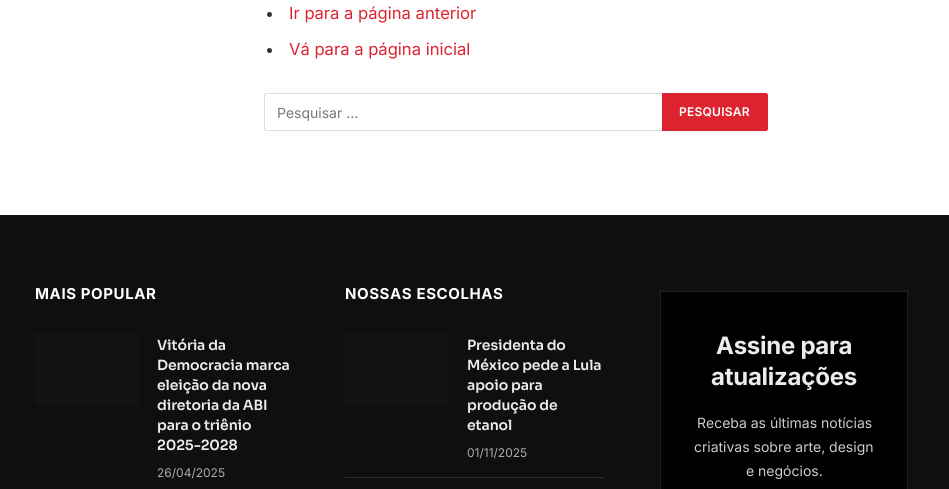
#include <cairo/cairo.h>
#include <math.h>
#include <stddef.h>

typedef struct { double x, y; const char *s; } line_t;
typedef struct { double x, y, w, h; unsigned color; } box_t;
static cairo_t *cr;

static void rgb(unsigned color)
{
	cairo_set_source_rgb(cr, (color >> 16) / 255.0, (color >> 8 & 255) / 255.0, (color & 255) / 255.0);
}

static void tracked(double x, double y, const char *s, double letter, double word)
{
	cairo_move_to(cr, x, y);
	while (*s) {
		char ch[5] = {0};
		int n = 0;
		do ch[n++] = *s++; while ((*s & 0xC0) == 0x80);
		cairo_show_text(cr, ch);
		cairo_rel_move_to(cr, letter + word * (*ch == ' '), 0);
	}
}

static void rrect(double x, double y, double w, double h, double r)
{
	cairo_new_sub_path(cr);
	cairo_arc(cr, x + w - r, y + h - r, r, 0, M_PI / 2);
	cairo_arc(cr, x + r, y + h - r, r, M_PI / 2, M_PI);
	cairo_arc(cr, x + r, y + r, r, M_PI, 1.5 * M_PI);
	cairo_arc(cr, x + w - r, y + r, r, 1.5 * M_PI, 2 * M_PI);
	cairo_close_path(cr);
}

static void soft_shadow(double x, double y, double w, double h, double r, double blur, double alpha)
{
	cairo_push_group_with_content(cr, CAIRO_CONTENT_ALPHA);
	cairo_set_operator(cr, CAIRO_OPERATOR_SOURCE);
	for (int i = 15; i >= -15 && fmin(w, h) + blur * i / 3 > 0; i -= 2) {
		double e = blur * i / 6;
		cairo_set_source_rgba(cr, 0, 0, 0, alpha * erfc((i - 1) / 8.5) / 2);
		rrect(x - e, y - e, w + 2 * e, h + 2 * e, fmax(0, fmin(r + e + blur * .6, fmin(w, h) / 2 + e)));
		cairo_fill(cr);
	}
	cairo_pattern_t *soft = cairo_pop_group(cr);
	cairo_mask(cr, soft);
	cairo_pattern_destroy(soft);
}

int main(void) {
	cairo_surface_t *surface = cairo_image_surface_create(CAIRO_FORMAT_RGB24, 949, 489);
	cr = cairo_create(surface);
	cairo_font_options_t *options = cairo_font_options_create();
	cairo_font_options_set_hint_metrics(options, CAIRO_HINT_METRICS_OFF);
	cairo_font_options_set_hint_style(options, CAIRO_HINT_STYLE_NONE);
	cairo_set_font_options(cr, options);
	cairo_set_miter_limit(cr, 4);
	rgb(0xffffff);
	cairo_paint(cr);
	rgb(0x333333);
	cairo_arc(cr, 269.5, 14.5, 2.5, 0, 2 * M_PI);
	cairo_fill(cr);
	cairo_arc(cr, 269.5, 50.5, 2.5, 0, 2 * M_PI);
	cairo_fill(cr);
	rrect(264.5, 93.5, 399, 37, 1.5);
	rgb(0xdddddd);
	cairo_set_line_width(cr, 1);
	cairo_stroke(cr);
	rgb(0x000000);
	soft_shadow(666, 99, 98, 30, 0, 3.5, 0.16);
	rgb(0xdd232f);
	cairo_new_path(cr);
	cairo_move_to(cr, 662, 93);
	cairo_line_to(cr, 766, 93);
	cairo_curve_to(cr, 767, 93, 768, 94, 768, 95);
	cairo_line_to(cr, 768, 129);
	cairo_curve_to(cr, 768, 130, 767, 131, 766, 131);
	cairo_line_to(cr, 662, 131);
	cairo_close_path(cr);
	cairo_fill(cr);
	{
		static const box_t items[] = {
			{0, 215, 949, 274, 0x0f0f11},
			{35, 333, 104, 72, 0x131314},
			{345, 333, 104, 72, 0x131314},
			{345, 477, 259, 1, 0x2e2e30},
		};
		for (size_t i = 0; i < sizeof items / sizeof *items; i++) {
			rgb(items[i].color);
			cairo_rectangle(cr, items[i].x, items[i].y, items[i].w, items[i].h);
			cairo_fill(cr);
		}
	}
	rgb(0x000000);
	cairo_rectangle(cr, 660.5, 291.5, 247, 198);
	cairo_fill_preserve(cr);
	rgb(0x212121);
	cairo_stroke(cr);
	cairo_select_font_face(cr, "Inter", CAIRO_FONT_SLANT_NORMAL, CAIRO_FONT_WEIGHT_NORMAL);
	cairo_set_font_size(cr, 16.6);
	rgb(0xdd232f);
	cairo_move_to(cr, 289, 19);
	cairo_show_text(cr, "Ir para a página anterior");
	cairo_move_to(cr, 289, 55);
	cairo_show_text(cr, "Vá para a página inicial");
	cairo_set_font_size(cr, 14);
	rgb(0x777777);
	cairo_move_to(cr, 277, 118);
	cairo_show_text(cr, "Pesquisar …");
	cairo_select_font_face(cr, "Inter SemiBold", CAIRO_FONT_SLANT_NORMAL, CAIRO_FONT_WEIGHT_NORMAL);
	cairo_set_font_size(cr, 12);
	rgb(0xffffff);
	tracked(679, 116, "PESQUISAR", 0.25, 0);
	cairo_select_font_face(cr, "Inter", CAIRO_FONT_SLANT_NORMAL, CAIRO_FONT_WEIGHT_BOLD);
	cairo_set_font_size(cr, 15);
	tracked(35, 299, "MAIS POPULAR", 0.6, 0);
	cairo_select_font_face(cr, "Sora SemiBold", CAIRO_FONT_SLANT_NORMAL, CAIRO_FONT_WEIGHT_NORMAL);
	cairo_set_font_size(cr, 14);
	rgb(0xececec);
	{
		static const line_t items[] = {
			{157, 350, "Vitória da"},
			{157, 370, "Democracia marca"},
			{157, 390, "eleição da nova"},
			{157, 410, "diretoria da ABI"},
			{157, 430, "para o triênio"},
			{157, 450, "2025-2028"},
		};
		for (size_t i = 0; i < sizeof items / sizeof *items; i++) {
			tracked(items[i].x, items[i].y, items[i].s, -0.1, 0);
		}
	}
	cairo_select_font_face(cr, "Inter", CAIRO_FONT_SLANT_NORMAL, CAIRO_FONT_WEIGHT_NORMAL);
	cairo_set_font_size(cr, 12);
	rgb(0xababac);
	cairo_move_to(cr, 157, 477);
	cairo_show_text(cr, "26/04/2025");
	cairo_select_font_face(cr, "Inter", CAIRO_FONT_SLANT_NORMAL, CAIRO_FONT_WEIGHT_BOLD);
	cairo_set_font_size(cr, 15);
	rgb(0xffffff);
	tracked(345, 299, "NOSSAS ESCOLHAS", 0.6, 0);
	cairo_select_font_face(cr, "Sora SemiBold", CAIRO_FONT_SLANT_NORMAL, CAIRO_FONT_WEIGHT_NORMAL);
	cairo_set_font_size(cr, 14);
	rgb(0xececec);
	{
		static const line_t items[] = {
			{467, 350, "Presidenta do"},
			{467, 370, "México pede a Lula"},
			{467, 390, "apoio para"},
			{467, 410, "produção de"},
			{467, 430, "etanol"},
		};
		for (size_t i = 0; i < sizeof items / sizeof *items; i++) {
			tracked(items[i].x, items[i].y, items[i].s, -0.1, 0);
		}
	}
	cairo_select_font_face(cr, "Inter", CAIRO_FONT_SLANT_NORMAL, CAIRO_FONT_WEIGHT_NORMAL);
	cairo_set_font_size(cr, 12);
	rgb(0xababac);
	cairo_move_to(cr, 467, 457);
	cairo_show_text(cr, "01/11/2025");
	cairo_select_font_face(cr, "Inter", CAIRO_FONT_SLANT_NORMAL, CAIRO_FONT_WEIGHT_BOLD);
	cairo_set_font_size(cr, 24);
	rgb(0xececec);
	tracked(716, 354, "Assine para", -0.25, 0);
	tracked(711, 385, "atualizações", -0.25, 0);
	cairo_select_font_face(cr, "Inter", CAIRO_FONT_SLANT_NORMAL, CAIRO_FONT_WEIGHT_NORMAL);
	cairo_set_font_size(cr, 14);
	rgb(0xcccccc);
	{
		static const line_t items[] = {
			{697, 428, "Receba as últimas notícias"},
			{694, 452, "criativas sobre arte, design"},
			{746, 476, "e negócios."},
		};
		for (size_t i = 0; i < sizeof items / sizeof *items; i++) {
			cairo_move_to(cr, items[i].x, items[i].y);
			cairo_show_text(cr, items[i].s);
		}
	}
	cairo_surface_write_to_png(surface, "page.png");
	cairo_font_options_destroy(options);
	cairo_destroy(cr);
	cairo_surface_destroy(surface);
	return 0;
}
